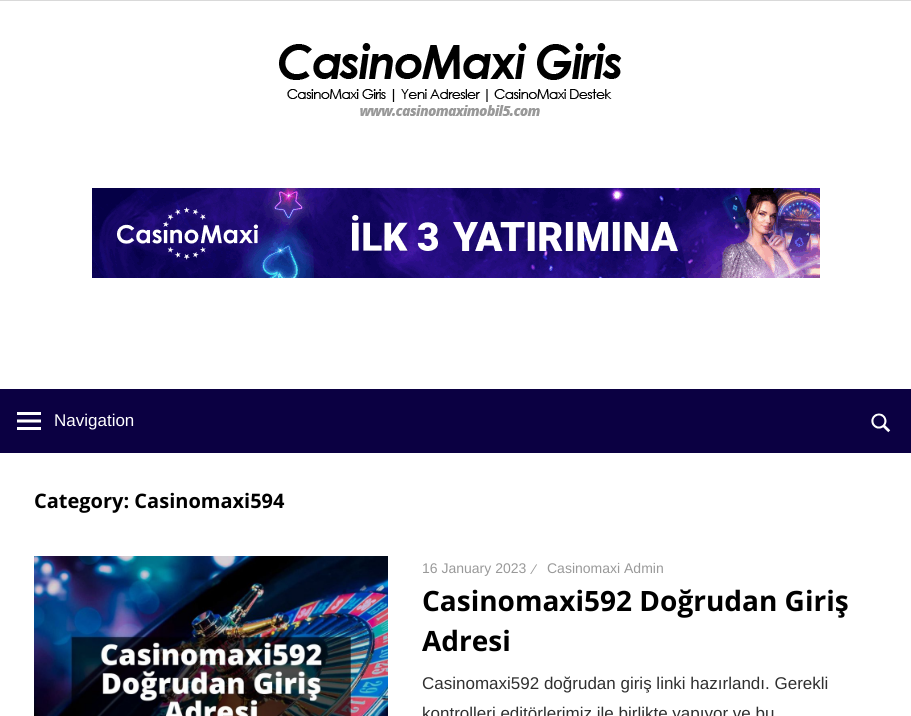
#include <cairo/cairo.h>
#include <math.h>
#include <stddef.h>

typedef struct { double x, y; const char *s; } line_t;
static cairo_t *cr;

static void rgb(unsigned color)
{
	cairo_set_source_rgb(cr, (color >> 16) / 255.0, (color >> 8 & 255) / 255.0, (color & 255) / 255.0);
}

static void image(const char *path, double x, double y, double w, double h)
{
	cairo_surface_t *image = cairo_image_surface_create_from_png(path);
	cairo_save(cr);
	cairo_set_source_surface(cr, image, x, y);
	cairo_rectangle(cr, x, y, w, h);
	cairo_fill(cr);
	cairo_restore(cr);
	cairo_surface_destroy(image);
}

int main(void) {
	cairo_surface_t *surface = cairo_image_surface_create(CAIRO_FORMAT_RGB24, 911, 716);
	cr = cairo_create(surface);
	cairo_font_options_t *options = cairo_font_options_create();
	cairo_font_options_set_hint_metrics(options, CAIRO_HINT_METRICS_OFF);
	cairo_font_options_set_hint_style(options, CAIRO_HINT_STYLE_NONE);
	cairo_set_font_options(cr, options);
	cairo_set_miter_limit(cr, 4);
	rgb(0xd9d9d9);
	cairo_paint(cr);
	rgb(0xffffff);
	cairo_rectangle(cr, 0, 1, 911, 715);
	cairo_fill(cr);
	image("img/1.png", 279, 43, 343, 73);
	image("img/2.png", 92, 188, 728, 90);
	rgb(0x0b0042);
	cairo_rectangle(cr, 0, 389, 911, 64);
	cairo_fill(cr);
	image("img/3.png", 17, 412, 24, 18);
	image("img/4.png", 871, 413, 20, 20);
	image("img/5.png", 34, 556, 354, 160);
	cairo_select_font_face(cr, "Liberation Sans", CAIRO_FONT_SLANT_NORMAL, CAIRO_FONT_WEIGHT_NORMAL);
	cairo_set_font_size(cr, 17);
	rgb(0xffffff);
	cairo_move_to(cr, 54, 426);
	cairo_show_text(cr, "Navigation");
	cairo_select_font_face(cr, "Open Sans", CAIRO_FONT_SLANT_NORMAL, CAIRO_FONT_WEIGHT_BOLD);
	cairo_set_font_size(cr, 20);
	rgb(0x000000);
	cairo_move_to(cr, 34, 508);
	cairo_show_text(cr, "Category: Casinomaxi594");
	cairo_select_font_face(cr, "Liberation Sans", CAIRO_FONT_SLANT_NORMAL, CAIRO_FONT_WEIGHT_NORMAL);
	cairo_set_font_size(cr, 14);
	rgb(0x999999);
	{
		static const line_t items[] = {
			{422, 573, "16 January 2023"},
			{533, 574, "⁄"},
			{547, 573, "Casinomaxi Admin"},
		};
		for (size_t i = 0; i < sizeof items / sizeof *items; i++) {
			cairo_move_to(cr, items[i].x, items[i].y);
			cairo_show_text(cr, items[i].s);
		}
	}
	cairo_select_font_face(cr, "Open Sans", CAIRO_FONT_SLANT_NORMAL, CAIRO_FONT_WEIGHT_BOLD);
	cairo_set_font_size(cr, 28);
	rgb(0x000000);
	cairo_move_to(cr, 422, 611);
	cairo_show_text(cr, "Casinomaxi592 Doğrudan Giriş");
	cairo_move_to(cr, 422, 651);
	cairo_show_text(cr, "Adresi");
	cairo_select_font_face(cr, "Liberation Sans", CAIRO_FONT_SLANT_NORMAL, CAIRO_FONT_WEIGHT_NORMAL);
	cairo_set_font_size(cr, 17);
	rgb(0x303030);
	cairo_move_to(cr, 422, 689);
	cairo_show_text(cr, "Casinomaxi592 doğrudan giriş linki hazırlandı. Gerekli");
	cairo_move_to(cr, 422, 719);
	cairo_show_text(cr, "kontrolleri editörlerimiz ile birlikte yapıyor ve bu");
	cairo_surface_write_to_png(surface, "page.png");
	cairo_font_options_destroy(options);
	cairo_destroy(cr);
	cairo_surface_destroy(surface);
	return 0;
}
